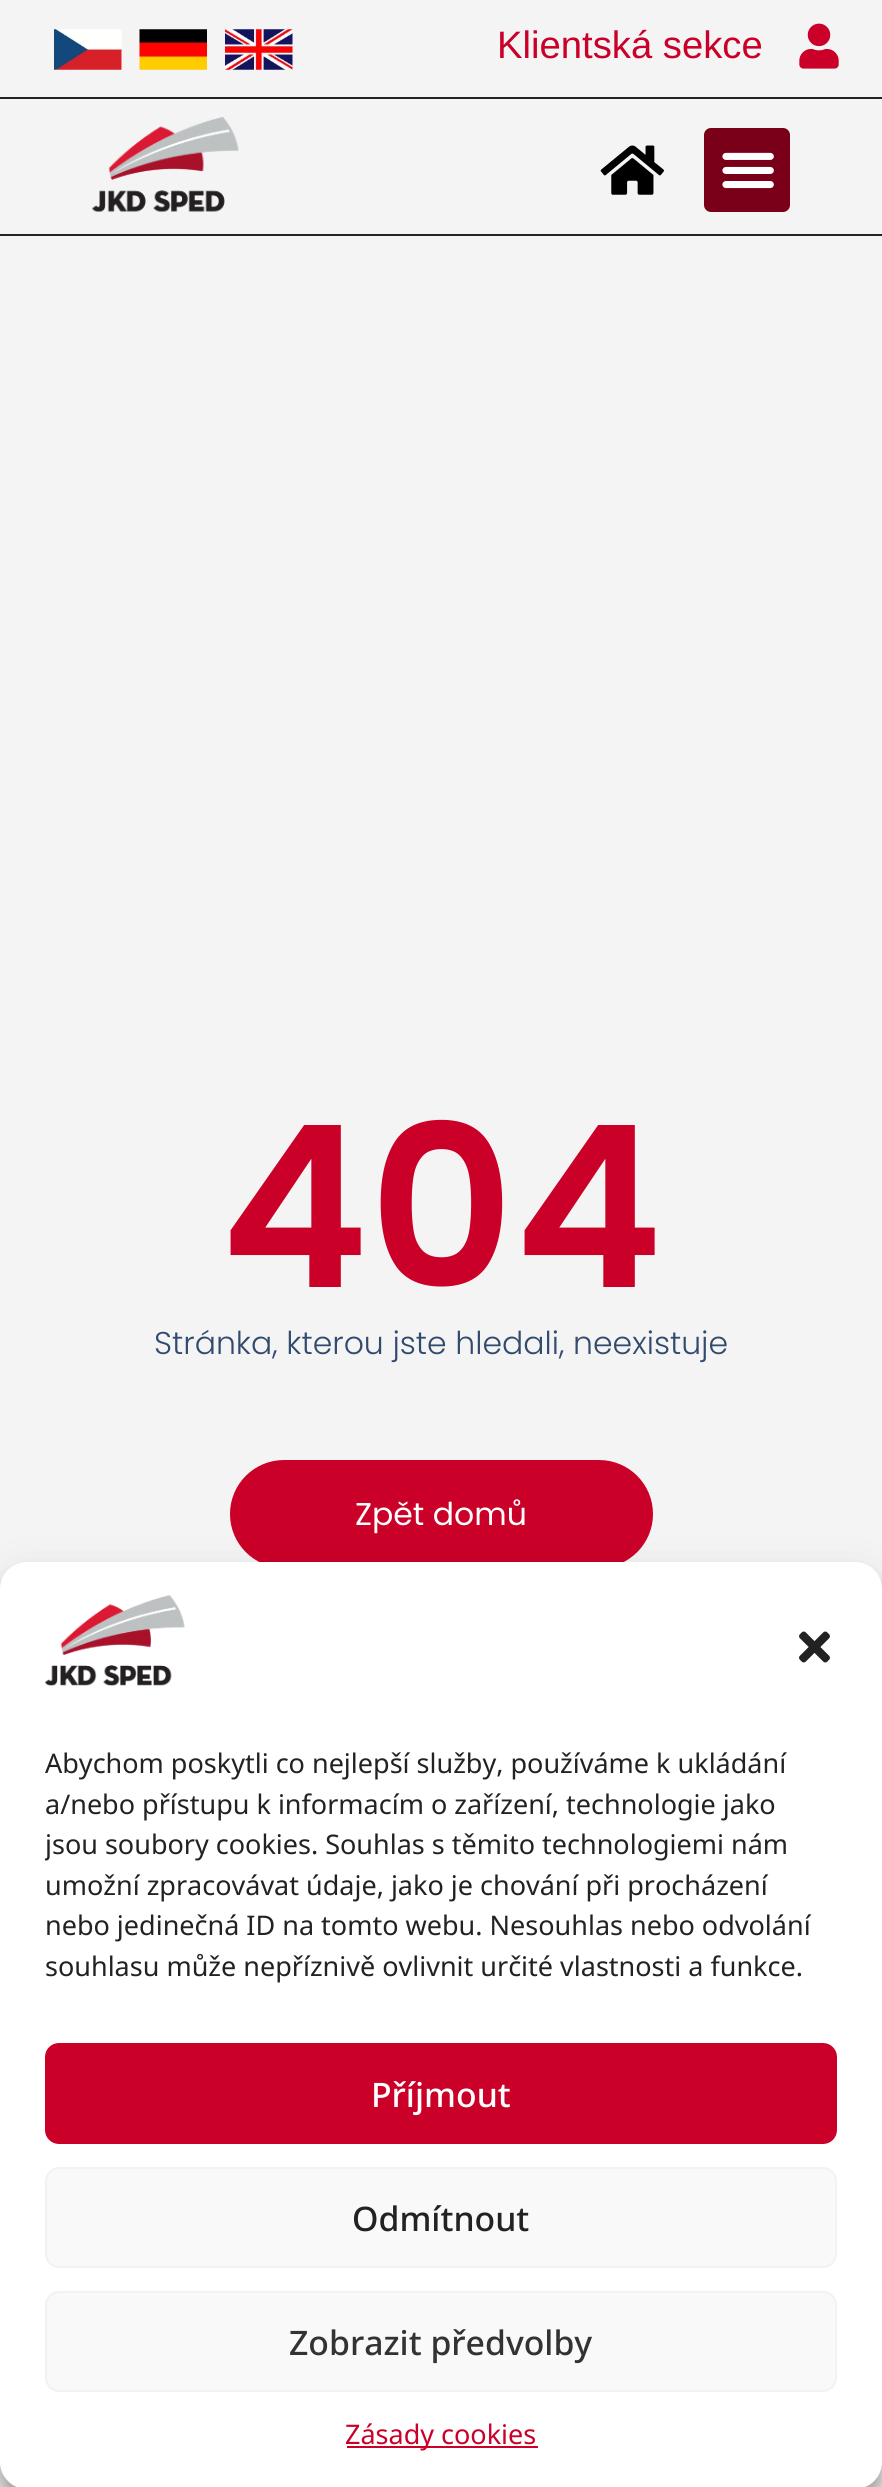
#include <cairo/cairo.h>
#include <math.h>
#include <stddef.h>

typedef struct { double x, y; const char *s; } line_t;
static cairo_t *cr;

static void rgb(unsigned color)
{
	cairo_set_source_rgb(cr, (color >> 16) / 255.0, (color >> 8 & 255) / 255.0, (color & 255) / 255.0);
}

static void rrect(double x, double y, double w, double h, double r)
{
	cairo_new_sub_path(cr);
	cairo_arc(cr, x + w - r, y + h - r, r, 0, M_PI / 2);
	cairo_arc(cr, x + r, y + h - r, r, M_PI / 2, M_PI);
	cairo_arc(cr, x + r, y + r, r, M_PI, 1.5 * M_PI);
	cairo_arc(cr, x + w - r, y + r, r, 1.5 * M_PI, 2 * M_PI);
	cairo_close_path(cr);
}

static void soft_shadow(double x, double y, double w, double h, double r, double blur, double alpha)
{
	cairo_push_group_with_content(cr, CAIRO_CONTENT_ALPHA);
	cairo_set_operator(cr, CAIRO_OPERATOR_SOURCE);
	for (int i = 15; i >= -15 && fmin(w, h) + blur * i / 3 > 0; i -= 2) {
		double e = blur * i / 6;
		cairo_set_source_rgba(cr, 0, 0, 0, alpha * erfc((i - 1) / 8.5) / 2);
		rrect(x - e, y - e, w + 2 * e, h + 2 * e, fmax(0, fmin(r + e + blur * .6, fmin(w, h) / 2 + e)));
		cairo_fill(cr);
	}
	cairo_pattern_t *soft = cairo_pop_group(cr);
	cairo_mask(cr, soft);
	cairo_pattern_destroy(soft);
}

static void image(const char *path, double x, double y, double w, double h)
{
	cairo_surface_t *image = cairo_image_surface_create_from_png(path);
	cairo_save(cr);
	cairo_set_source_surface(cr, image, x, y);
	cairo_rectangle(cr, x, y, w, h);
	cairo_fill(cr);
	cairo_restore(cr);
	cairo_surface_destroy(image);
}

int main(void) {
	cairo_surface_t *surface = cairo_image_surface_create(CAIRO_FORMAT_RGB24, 882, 2487);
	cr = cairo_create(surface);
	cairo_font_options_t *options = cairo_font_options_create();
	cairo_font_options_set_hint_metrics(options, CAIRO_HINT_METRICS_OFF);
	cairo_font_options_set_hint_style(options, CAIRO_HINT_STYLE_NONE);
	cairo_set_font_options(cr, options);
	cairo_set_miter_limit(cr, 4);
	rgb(0xf4f4f4);
	cairo_paint(cr);
	rgb(0x222222);
	cairo_rectangle(cr, 0, 97, 882, 2);
	cairo_fill(cr);
	image("img/1.png", 54, 29, 68, 41);
	image("img/2.png", 139, 29, 68, 41);
	image("img/3.png", 225, 29, 68, 41);
	image("img/4.png", 799, 23, 40, 46);
	cairo_rectangle(cr, 0, 234, 882, 2);
	cairo_fill(cr);
	image("img/5.png", 92, 117, 147, 95);
	image("img/6.png", 600, 145, 64, 50);
	rgb(0x790018);
	rrect(704, 128, 86, 84, 7);
	cairo_fill(cr);
	image("img/7.png", 722, 152, 52, 37);
	rgb(0xca0028);
	rrect(231, 1461, 421, 106, 53);
	cairo_fill_preserve(cr);
	cairo_stroke(cr);
	rgb(0x000000);
	soft_shadow(0, 1575, 882, 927, 27, 7, 0.23);
	soft_shadow(0, 1584, 882, 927, 27, 22.5, 0.19);
	rgb(0x808080);
	soft_shadow(725, 2322, 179, 135, 5, 5.5, 1);
	rgb(0xffffff);
	rrect(0, 1562, 882, 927, 27);
	cairo_fill(cr);
	image("img/8.png", 45, 1595, 140, 91);
	image("img/9.png", 799, 1631, 31, 32);
	rgb(0xca0028);
	rrect(46, 2044, 790, 99, 13);
	cairo_fill_preserve(cr);
	cairo_stroke(cr);
	rgb(0xf9f9f9);
	rrect(46, 2168, 790, 99, 13);
	cairo_fill_preserve(cr);
	rgb(0xf2f2f2);
	cairo_stroke(cr);
	rgb(0xf9f9f9);
	rrect(46, 2292, 790, 99, 13);
	cairo_fill_preserve(cr);
	rgb(0xf2f2f2);
	cairo_stroke(cr);
	rgb(0xca0028);
	cairo_rectangle(cr, 347, 2446, 191, 2);
	cairo_fill(cr);
	cairo_select_font_face(cr, "Liberation Sans", CAIRO_FONT_SLANT_NORMAL, CAIRO_FONT_WEIGHT_NORMAL);
	cairo_set_font_size(cr, 38.25);
	cairo_move_to(cr, 497, 58);
	cairo_show_text(cr, "Klientská sekce");
	cairo_select_font_face(cr, "Poppins SemiBold", CAIRO_FONT_SLANT_NORMAL, CAIRO_FONT_WEIGHT_NORMAL);
	cairo_set_font_size(cr, 225);
	cairo_move_to(cr, 220, 1287);
	cairo_show_text(cr, "404");
	cairo_select_font_face(cr, "Poppins Light", CAIRO_FONT_SLANT_NORMAL, CAIRO_FONT_WEIGHT_NORMAL);
	cairo_set_font_size(cr, 31.5);
	rgb(0x324a6d);
	cairo_move_to(cr, 154, 1354);
	cairo_show_text(cr, "Stránka, kterou jste hledali, neexistuje");
	cairo_select_font_face(cr, "Poppins", CAIRO_FONT_SLANT_NORMAL, CAIRO_FONT_WEIGHT_NORMAL);
	rgb(0xffffff);
	cairo_move_to(cr, 355, 1525);
	cairo_show_text(cr, "Zpět domů");
	cairo_select_font_face(cr, "Noto Sans", CAIRO_FONT_SLANT_NORMAL, CAIRO_FONT_WEIGHT_NORMAL);
	cairo_set_font_size(cr, 27);
	rgb(0x222222);
	cairo_move_to(cr, 45, 1773);
	cairo_show_text(cr, "Abychom poskytli co nejlepší služby, používáme k ukládání");
	cairo_move_to(cr, 45, 1814);
	cairo_show_text(cr, "a/nebo přístupu k informacím o zařízení, technologie jako");
	cairo_save(cr);
	cairo_rectangle(cr, 45, 1744, 792, 254);
	cairo_clip(cr);
	cairo_move_to(cr, 45, 1854);
	cairo_show_text(cr, "jsou soubory cookies. Souhlas s těmito technologiemi nám");
	cairo_restore(cr);
	{
		static const line_t items[] = {
			{45, 1895, "umožní zpracovávat údaje, jako je chování při procházení"},
			{45, 1935, "nebo jedinečná ID na tomto webu. Nesouhlas nebo odvolání"},
			{45, 1976, "souhlasu může nepříznivě ovlivnit určité vlastnosti a funkce."},
		};
		for (size_t i = 0; i < sizeof items / sizeof *items; i++) {
			cairo_move_to(cr, items[i].x, items[i].y);
			cairo_show_text(cr, items[i].s);
		}
	}
	cairo_select_font_face(cr, "Noto Sans Medium", CAIRO_FONT_SLANT_NORMAL, CAIRO_FONT_WEIGHT_NORMAL);
	cairo_set_font_size(cr, 33.75);
	rgb(0xffffff);
	cairo_move_to(cr, 371, 2107);
	cairo_show_text(cr, "Příjmout");
	rgb(0x222222);
	cairo_move_to(cr, 352, 2231);
	cairo_show_text(cr, "Odmítnout");
	rgb(0x333333);
	cairo_move_to(cr, 289, 2355);
	cairo_show_text(cr, "Zobrazit předvolby");
	cairo_select_font_face(cr, "Noto Sans", CAIRO_FONT_SLANT_NORMAL, CAIRO_FONT_WEIGHT_NORMAL);
	cairo_set_font_size(cr, 27);
	rgb(0xca0028);
	cairo_move_to(cr, 345, 2444);
	cairo_show_text(cr, "Zásady cookies");
	cairo_surface_write_to_png(surface, "page.png");
	cairo_font_options_destroy(options);
	cairo_destroy(cr);
	cairo_surface_destroy(surface);
	return 0;
}
